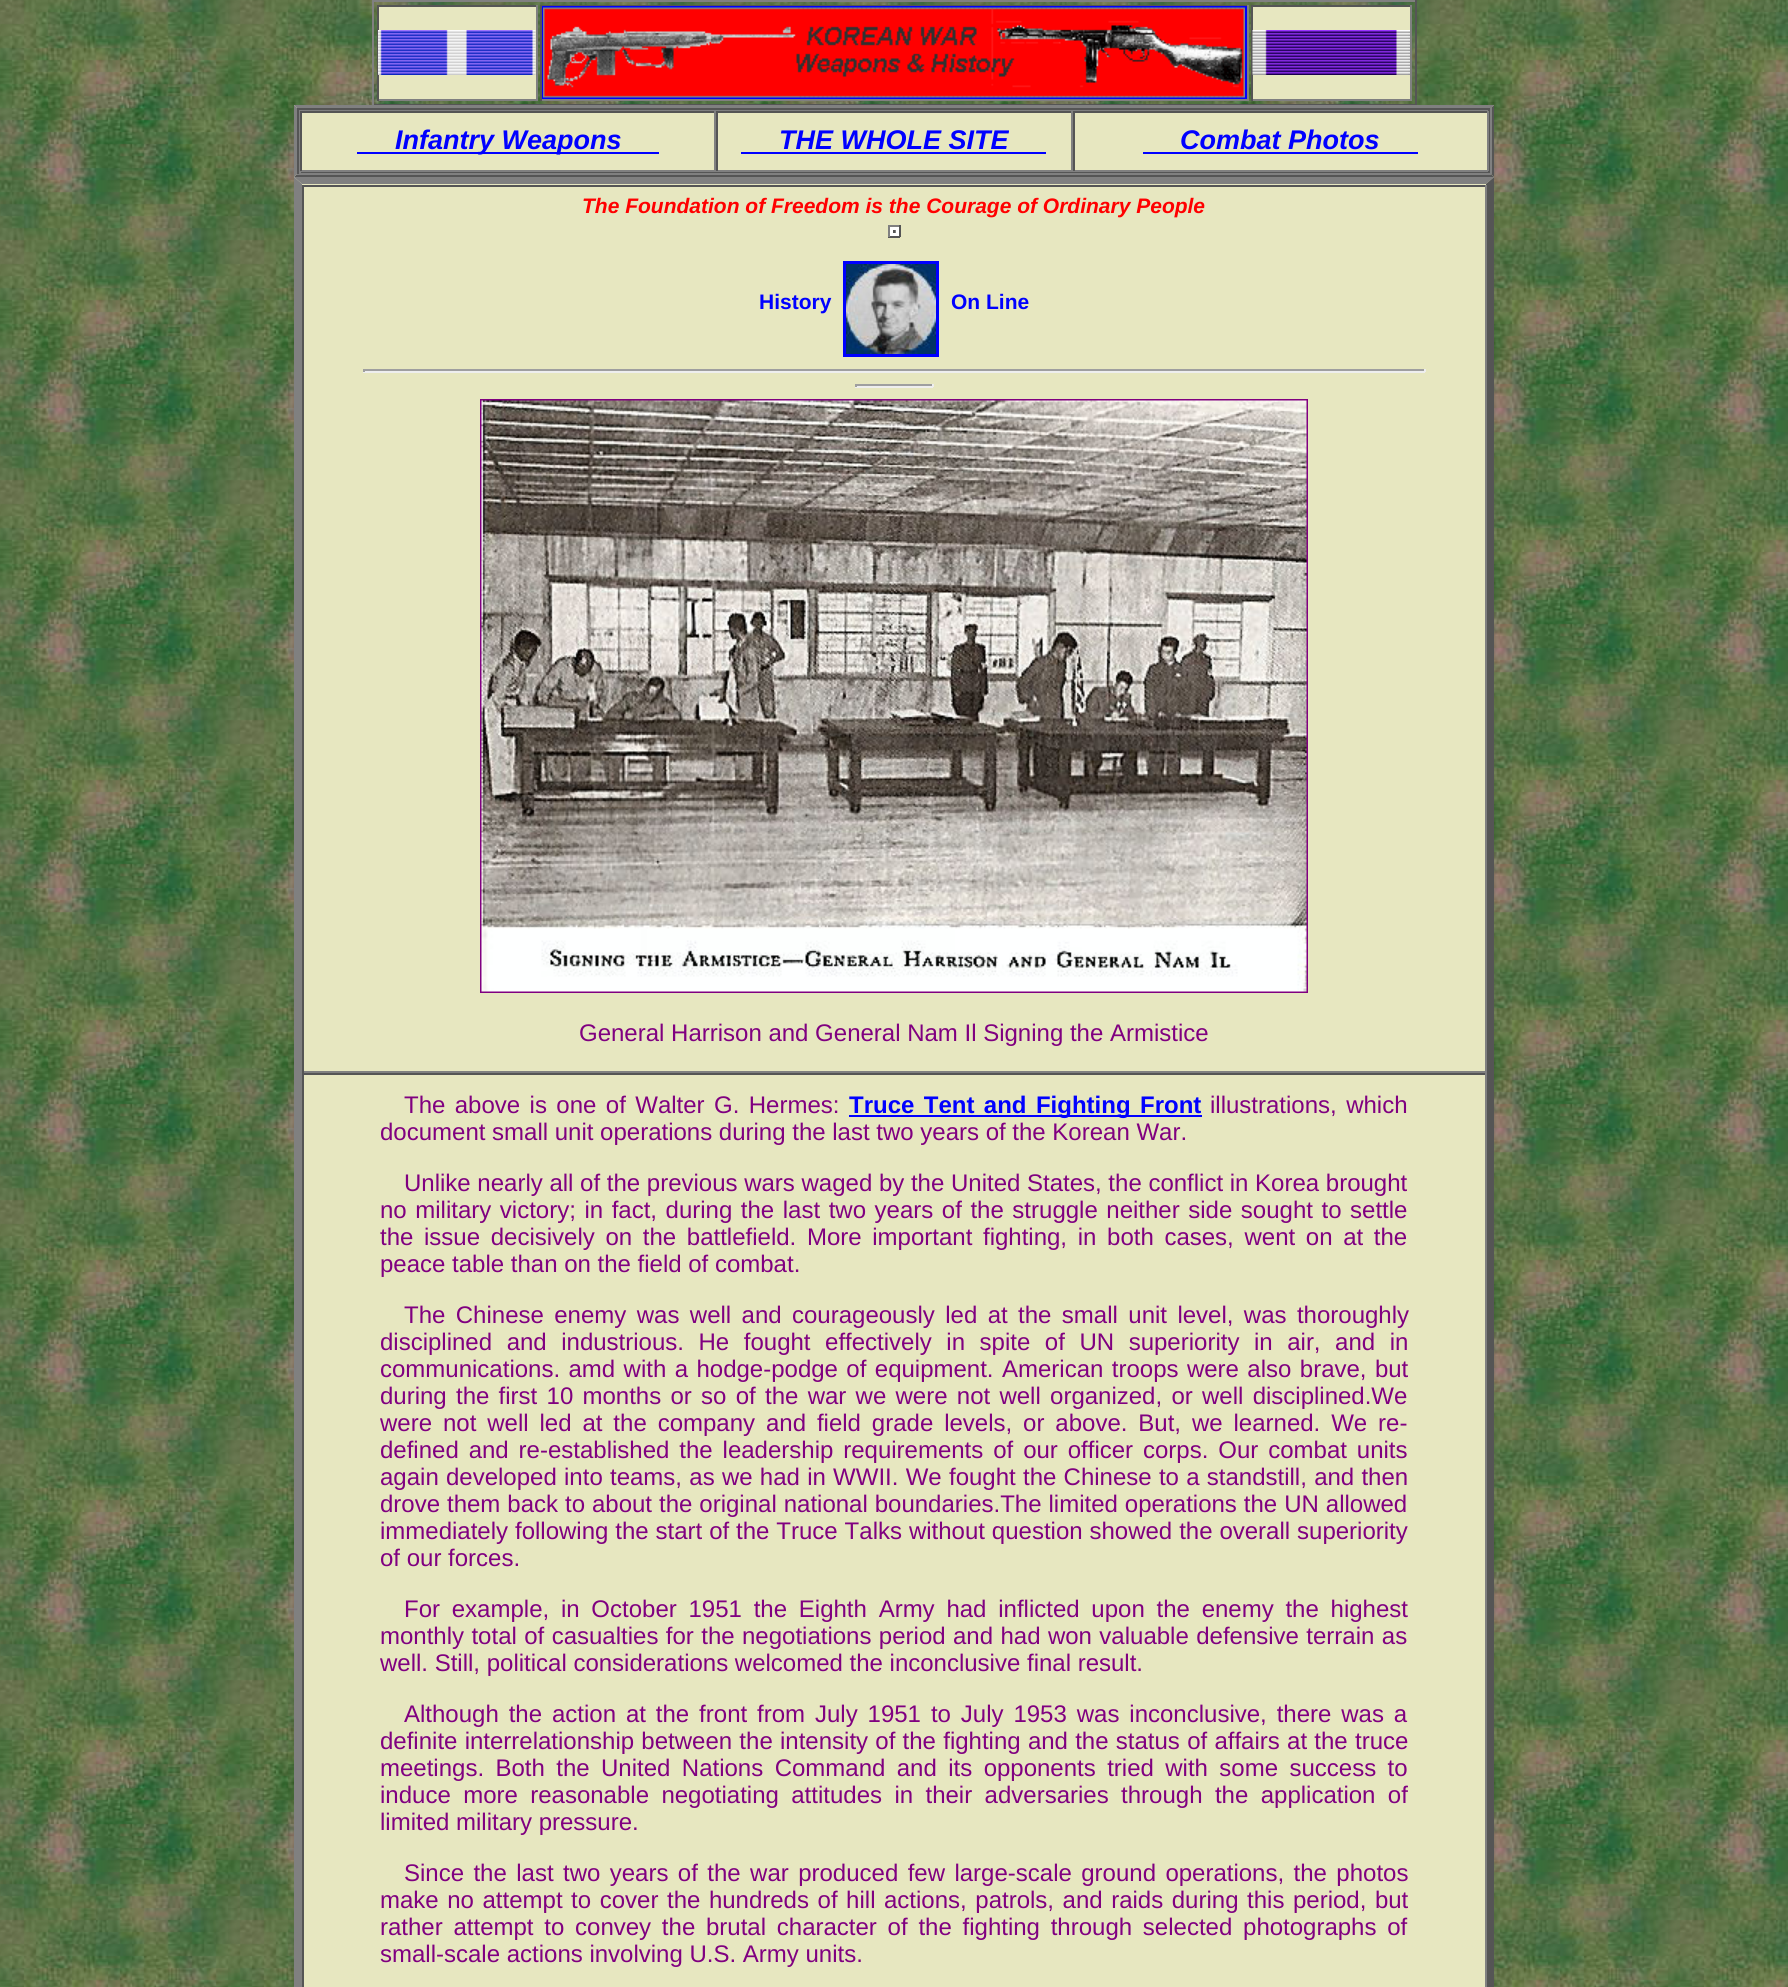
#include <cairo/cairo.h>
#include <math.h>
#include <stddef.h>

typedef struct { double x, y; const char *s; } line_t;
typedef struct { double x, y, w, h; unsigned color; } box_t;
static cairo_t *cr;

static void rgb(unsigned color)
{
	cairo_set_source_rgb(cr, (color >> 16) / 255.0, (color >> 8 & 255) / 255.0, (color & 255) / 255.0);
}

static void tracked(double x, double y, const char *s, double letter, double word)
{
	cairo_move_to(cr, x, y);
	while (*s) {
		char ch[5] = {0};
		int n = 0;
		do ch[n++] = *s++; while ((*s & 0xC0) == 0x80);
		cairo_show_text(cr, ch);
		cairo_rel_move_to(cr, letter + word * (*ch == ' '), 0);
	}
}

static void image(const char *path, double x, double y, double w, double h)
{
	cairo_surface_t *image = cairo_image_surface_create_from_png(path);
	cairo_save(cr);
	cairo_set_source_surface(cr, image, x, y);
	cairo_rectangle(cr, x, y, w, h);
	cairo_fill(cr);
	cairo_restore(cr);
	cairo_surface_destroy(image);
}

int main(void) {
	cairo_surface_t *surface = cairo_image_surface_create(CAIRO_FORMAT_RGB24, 1788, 1987);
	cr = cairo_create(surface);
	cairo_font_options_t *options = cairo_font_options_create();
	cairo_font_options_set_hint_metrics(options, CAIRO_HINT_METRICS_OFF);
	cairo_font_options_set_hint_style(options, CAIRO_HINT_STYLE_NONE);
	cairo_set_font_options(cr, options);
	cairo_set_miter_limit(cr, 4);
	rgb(0xffffff);
	cairo_paint(cr);
	image("img/1.png", 0, 0, 1788, 1987);
	{
		static const box_t items[] = {
			{372, 0, 1044, 2, 0x808080},
			{1415, 0, 2, 105, 0x555555},
			{372, 104, 1044, 1, 0x555555},
			{372, 0, 2, 105, 0x808080},
			{379, 7, 157, 92, 0xe7e7c0},
			{377, 5, 160, 2, 0x555555},
			{536, 5, 2, 96, 0x808080},
			{377, 99, 160, 2, 0x808080},
			{377, 5, 2, 96, 0x555555},
		};
		for (size_t i = 0; i < sizeof items / sizeof *items; i++) {
			rgb(items[i].color);
			cairo_rectangle(cr, items[i].x, items[i].y, items[i].w, items[i].h);
			cairo_fill(cr);
		}
	}
	image("img/2.png", 378, 30, 158, 45);
	{
		static const box_t items[] = {
			{540, 5, 708, 1, 0x555555},
			{1247, 5, 2, 96, 0x808080},
			{540, 99, 708, 2, 0x808080},
			{540, 5, 2, 96, 0x555555},
		};
		for (size_t i = 0; i < sizeof items / sizeof *items; i++) {
			rgb(items[i].color);
			cairo_rectangle(cr, items[i].x, items[i].y, items[i].w, items[i].h);
			cairo_fill(cr);
		}
	}
	cairo_rectangle(cr, 543, 7, 703, 91);
	rgb(0x0000ff);
	cairo_stroke(cr);
	image("img/3.png", 543, 7, 702, 91);
	{
		static const box_t items[] = {
			{1253, 7, 157, 92, 0xe7e7c0},
			{1251, 5, 161, 2, 0x555555},
			{1410, 5, 2, 96, 0x808080},
			{1251, 99, 161, 2, 0x808080},
			{1251, 5, 2, 96, 0x555555},
		};
		for (size_t i = 0; i < sizeof items / sizeof *items; i++) {
			rgb(items[i].color);
			cairo_rectangle(cr, items[i].x, items[i].y, items[i].w, items[i].h);
			cairo_fill(cr);
		}
	}
	image("img/4.png", 1252, 30, 158, 45);
	rgb(0xe7e7c0);
	cairo_rectangle(cr, 294, 105, 1200, 1882);
	cairo_fill(cr);
	rgb(0x808080);
	cairo_new_path(cr);
	cairo_move_to(cr, 294, 105);
	cairo_line_to(cr, 1494, 105);
	cairo_line_to(cr, 1491, 108);
	cairo_line_to(cr, 297, 108);
	cairo_close_path(cr);
	cairo_fill(cr);
	rgb(0x555555);
	cairo_new_path(cr);
	cairo_move_to(cr, 1494, 105);
	cairo_line_to(cr, 1494, 177);
	cairo_line_to(cr, 1491, 174);
	cairo_line_to(cr, 1491, 108);
	cairo_close_path(cr);
	cairo_fill(cr);
	cairo_new_path(cr);
	cairo_move_to(cr, 1494, 177);
	cairo_line_to(cr, 294, 177);
	cairo_line_to(cr, 297, 174);
	cairo_line_to(cr, 1491, 174);
	cairo_close_path(cr);
	cairo_fill(cr);
	rgb(0x808080);
	cairo_new_path(cr);
	cairo_move_to(cr, 294, 177);
	cairo_line_to(cr, 294, 105);
	cairo_line_to(cr, 297, 108);
	cairo_line_to(cr, 297, 174);
	cairo_close_path(cr);
	cairo_fill(cr);
	{
		static const box_t items[] = {
			{297, 108, 1194, 2, 0x555555},
			{1490, 108, 2, 66, 0x808080},
			{297, 173, 1194, 2, 0x808080},
			{297, 108, 2, 66, 0x555555},
			{299, 110, 1191, 1, 0x808080},
			{1488, 110, 2, 63, 0x555555},
			{299, 171, 1191, 2, 0x555555},
			{299, 110, 2, 63, 0x808080},
			{300, 111, 1188, 2, 0x555555},
			{714, 111, 2, 60, 0x808080},
			{300, 170, 416, 2, 0x808080},
			{300, 111, 2, 60, 0x555555},
			{357, 152, 302, 2, 0x0000ff},
			{1071, 111, 2, 60, 0x808080},
			{716, 170, 357, 2, 0x808080},
			{716, 111, 2, 60, 0x555555},
			{741, 152, 305, 2, 0x0000ff},
			{1487, 111, 2, 60, 0x808080},
			{1073, 170, 415, 2, 0x808080},
			{1073, 111, 2, 60, 0x555555},
			{1143, 152, 275, 2, 0x0000ff},
		};
		for (size_t i = 0; i < sizeof items / sizeof *items; i++) {
			rgb(items[i].color);
			cairo_rectangle(cr, items[i].x, items[i].y, items[i].w, items[i].h);
			cairo_fill(cr);
		}
	}
	rgb(0x808080);
	cairo_new_path(cr);
	cairo_move_to(cr, 294, 177);
	cairo_line_to(cr, 1494, 177);
	cairo_line_to(cr, 1486, 184);
	cairo_line_to(cr, 302, 184);
	cairo_close_path(cr);
	cairo_fill(cr);
	rgb(0x555555);
	cairo_new_path(cr);
	cairo_move_to(cr, 1494, 177);
	cairo_line_to(cr, 1494, 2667);
	cairo_line_to(cr, 1486, 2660);
	cairo_line_to(cr, 1486, 184);
	cairo_close_path(cr);
	cairo_fill(cr);
	rgb(0x808080);
	cairo_new_path(cr);
	cairo_move_to(cr, 294, 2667);
	cairo_line_to(cr, 294, 177);
	cairo_line_to(cr, 302, 184);
	cairo_line_to(cr, 302, 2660);
	cairo_close_path(cr);
	cairo_fill(cr);
	{
		static const box_t items[] = {
			{302, 185, 1185, 2, 0x555555},
			{1485, 185, 2, 888, 0x808080},
			{302, 1071, 1185, 2, 0x808080},
			{302, 185, 2, 888, 0x555555},
			{890, 227, 9, 9, 0xffffff},
			{888, 225, 12, 2, 0x808080},
			{899, 225, 2, 12, 0x555555},
			{888, 236, 12, 2, 0x555555},
			{888, 225, 2, 12, 0x808080},
			{895, 230, 1, 3, 0x808080},
			{893, 231, 3, 2, 0x808080},
			{893, 230, 2, 3, 0x555555},
		};
		for (size_t i = 0; i < sizeof items / sizeof *items; i++) {
			rgb(items[i].color);
			cairo_rectangle(cr, items[i].x, items[i].y, items[i].w, items[i].h);
			cairo_fill(cr);
		}
	}
	cairo_rectangle(cr, 844.5, 262.5, 93, 93);
	rgb(0x0000ff);
	cairo_set_line_width(cr, 3);
	cairo_stroke(cr);
	image("img/5.png", 846, 264, 90, 90);
	{
		static const box_t items[] = {
			{363, 369, 1062, 2, 0x9f9f9f},
			{1424, 369, 2, 3, 0xeeeeee},
			{363, 371, 1062, 2, 0xeeeeee},
			{363, 369, 2, 3, 0x9f9f9f},
			{855, 384, 78, 2, 0x9f9f9f},
			{932, 384, 2, 3, 0xeeeeee},
			{855, 386, 78, 2, 0xeeeeee},
			{855, 384, 2, 3, 0x9f9f9f},
		};
		for (size_t i = 0; i < sizeof items / sizeof *items; i++) {
			rgb(items[i].color);
			cairo_rectangle(cr, items[i].x, items[i].y, items[i].w, items[i].h);
			cairo_fill(cr);
		}
	}
	cairo_rectangle(cr, 481, 400, 826, 592);
	rgb(0x800080);
	cairo_set_line_width(cr, 2);
	cairo_stroke(cr);
	image("img/6.png", 481, 400, 826, 592);
	{
		static const box_t items[] = {
			{302, 1073, 1185, 2, 0x555555},
			{1485, 1073, 2, 914, 0x808080},
			{302, 1073, 2, 914, 0x555555},
			{849, 1115, 353, 2, 0x0000ff},
		};
		for (size_t i = 0; i < sizeof items / sizeof *items; i++) {
			rgb(items[i].color);
			cairo_rectangle(cr, items[i].x, items[i].y, items[i].w, items[i].h);
			cairo_fill(cr);
		}
	}
	cairo_select_font_face(cr, "Liberation Sans", CAIRO_FONT_SLANT_ITALIC, CAIRO_FONT_WEIGHT_BOLD);
	cairo_set_font_size(cr, 27);
	{
		static const line_t items[] = {
			{395, 149, "Infantry Weapons"},
			{779, 149, "THE WHOLE SITE"},
			{1180, 149, "Combat Photos"},
		};
		for (size_t i = 0; i < sizeof items / sizeof *items; i++) {
			cairo_move_to(cr, items[i].x, items[i].y);
			cairo_show_text(cr, items[i].s);
		}
	}
	cairo_set_font_size(cr, 21);
	rgb(0xff0000);
	cairo_move_to(cr, 582, 213);
	cairo_show_text(cr, "The Foundation of Freedom is the Courage of Ordinary People");
	cairo_select_font_face(cr, "Liberation Sans", CAIRO_FONT_SLANT_NORMAL, CAIRO_FONT_WEIGHT_BOLD);
	rgb(0x0000ff);
	cairo_move_to(cr, 759, 309);
	cairo_show_text(cr, "History");
	cairo_move_to(cr, 951, 309);
	cairo_show_text(cr, "On Line");
	cairo_select_font_face(cr, "Liberation Sans", CAIRO_FONT_SLANT_NORMAL, CAIRO_FONT_WEIGHT_NORMAL);
	cairo_set_font_size(cr, 24);
	rgb(0x800080);
	cairo_move_to(cr, 579, 1041);
	cairo_show_text(cr, "General Harrison and General Nam Il Signing the Armistice");
	tracked(404, 1113, "The above is one of Walter G. Hermes:", 0, 2.75);
	cairo_select_font_face(cr, "Liberation Sans", CAIRO_FONT_SLANT_NORMAL, CAIRO_FONT_WEIGHT_BOLD);
	rgb(0x0000ff);
	tracked(849, 1113, "Truce Tent and Fighting Front", 0, 2.75);
	cairo_select_font_face(cr, "Liberation Sans", CAIRO_FONT_SLANT_NORMAL, CAIRO_FONT_WEIGHT_NORMAL);
	rgb(0x800080);
	tracked(1210, 1113, "illustrations, which", 0, 2.75);
	cairo_move_to(cr, 380, 1140);
	cairo_show_text(cr, "document small unit operations during the last two years of the Korean War.");
	cairo_move_to(cr, 404, 1191);
	cairo_show_text(cr, "Unlike nearly all of the previous wars waged by the United States, the conflict in Korea brought");
	tracked(380, 1218, "no military victory; in fact, during the last two years of the struggle neither side sought to settle", 0, 1.9);
	tracked(380, 1245, "the issue decisively on the battlefield. More important fighting, in both cases, went on at the", 0, 4);
	cairo_move_to(cr, 380, 1272);
	cairo_show_text(cr, "peace table than on the field of combat.");
	tracked(404, 1323, "The Chinese enemy was well and courageously led at the small unit level, was thoroughly", 0, 3.75);
	tracked(380, 1350, "disciplined and industrious. He fought effectively in spite of UN superiority in air, and in", 0, 7.9);
	tracked(380, 1377, "communications. amd with a hodge-podge of equipment.", 0, 1.75);
	tracked(1002, 1377, "American troops were also brave, but", 0, 1.75);
	tracked(380, 1404, "during the first 10 months or so of the war we were not well organized, or well disciplined.We", 0, 2.6);
	tracked(380, 1431, "were not well led at the company and field grade levels, or above. But, we learned. We re-", 0, 4.25);
	tracked(380, 1458, "defined and re-established the leadership requirements of our officer corps. Our combat units", 0, 3.25);
	tracked(380, 1485, "again developed into teams, as we had in WWII. We fought the Chinese to a standstill, and then", 0, 0.6);
	tracked(380, 1512, "drove them back to about the original national boundaries.The limited operations the UN allowed", 0, 0.3);
	tracked(380, 1539, "immediately following the start of the Truce Talks without question showed the overall superiority", 0, 0.25);
	cairo_move_to(cr, 380, 1566);
	cairo_show_text(cr, "of our forces.");
	tracked(404, 1617, "For example, in October 1951 the Eighth Army had inflicted upon the enemy the highest", 0, 5.1);
	tracked(380, 1644, "monthly total of casualties for the negotiations period and had won valuable defensive terrain as", 0, 0.75);
	cairo_move_to(cr, 380, 1671);
	cairo_show_text(cr, "well. Still, political considerations welcomed the inconclusive final result.");
	tracked(404, 1722, "Although the action at the front from July 1951 to July 1953 was inconclusive, there was a", 0, 3.25);
	tracked(380, 1749, "definite interrelationship between the intensity of the fighting and the status of affairs at the truce", 0, 0.6);
	tracked(380, 1776, "meetings. Both the United Nations Command and its opponents tried with some success to", 0, 4.75);
	tracked(380, 1803, "induce more reasonable negotiating attitudes in their adversaries through the application of", 0, 5.75);
	cairo_move_to(cr, 380, 1830);
	cairo_show_text(cr, "limited military pressure.");
	tracked(404, 1881, "Since the last two years of the war produced few large-scale ground operations, the photos", 0, 2.75);
	tracked(380, 1908, "make no attempt to cover the hundreds of hill actions, patrols, and raids during this period, but", 0, 1.9);
	tracked(380, 1935, "rather attempt to convey the brutal character of the fighting through selected photographs of", 0, 4.1);
	cairo_move_to(cr, 380, 1962);
	cairo_show_text(cr, "small-scale actions involving U.S. Army units.");
	cairo_surface_write_to_png(surface, "page.png");
	cairo_font_options_destroy(options);
	cairo_destroy(cr);
	cairo_surface_destroy(surface);
	return 0;
}
